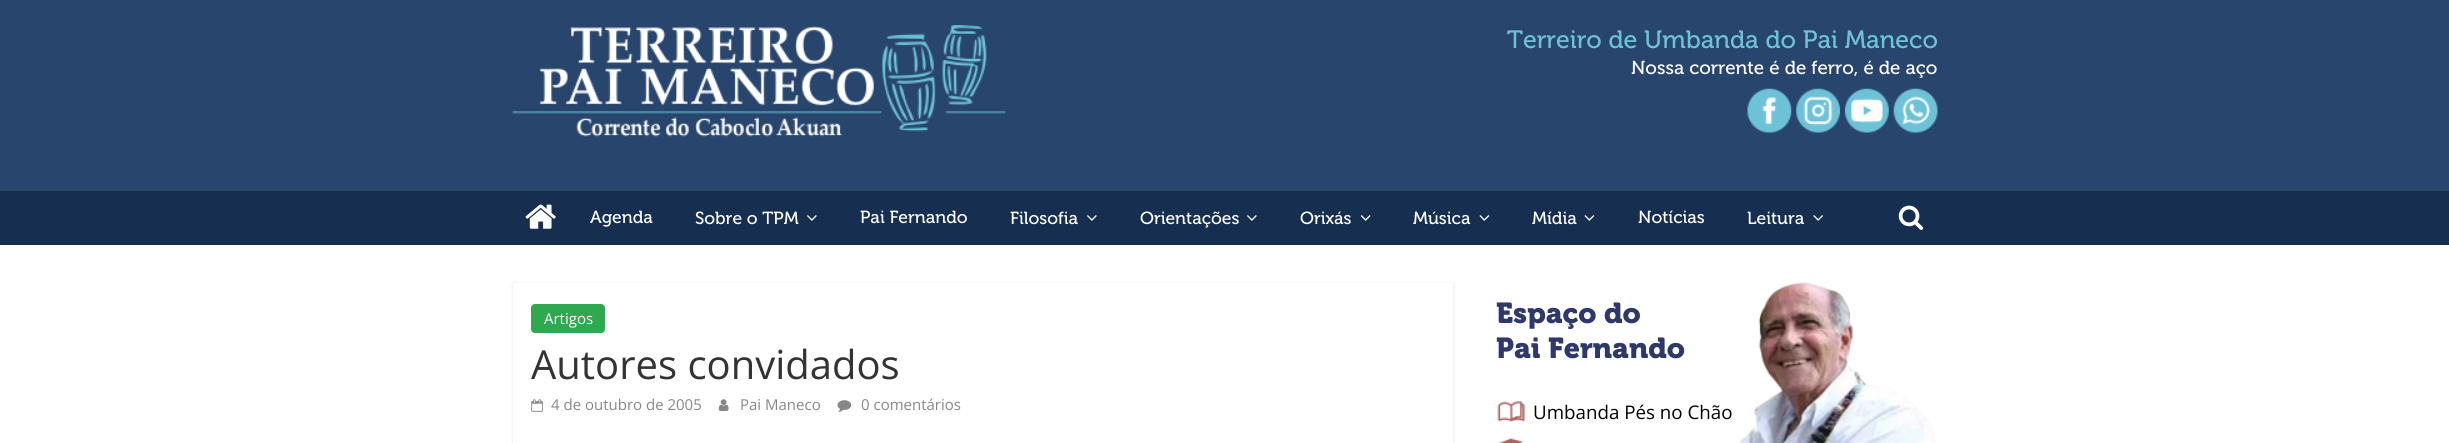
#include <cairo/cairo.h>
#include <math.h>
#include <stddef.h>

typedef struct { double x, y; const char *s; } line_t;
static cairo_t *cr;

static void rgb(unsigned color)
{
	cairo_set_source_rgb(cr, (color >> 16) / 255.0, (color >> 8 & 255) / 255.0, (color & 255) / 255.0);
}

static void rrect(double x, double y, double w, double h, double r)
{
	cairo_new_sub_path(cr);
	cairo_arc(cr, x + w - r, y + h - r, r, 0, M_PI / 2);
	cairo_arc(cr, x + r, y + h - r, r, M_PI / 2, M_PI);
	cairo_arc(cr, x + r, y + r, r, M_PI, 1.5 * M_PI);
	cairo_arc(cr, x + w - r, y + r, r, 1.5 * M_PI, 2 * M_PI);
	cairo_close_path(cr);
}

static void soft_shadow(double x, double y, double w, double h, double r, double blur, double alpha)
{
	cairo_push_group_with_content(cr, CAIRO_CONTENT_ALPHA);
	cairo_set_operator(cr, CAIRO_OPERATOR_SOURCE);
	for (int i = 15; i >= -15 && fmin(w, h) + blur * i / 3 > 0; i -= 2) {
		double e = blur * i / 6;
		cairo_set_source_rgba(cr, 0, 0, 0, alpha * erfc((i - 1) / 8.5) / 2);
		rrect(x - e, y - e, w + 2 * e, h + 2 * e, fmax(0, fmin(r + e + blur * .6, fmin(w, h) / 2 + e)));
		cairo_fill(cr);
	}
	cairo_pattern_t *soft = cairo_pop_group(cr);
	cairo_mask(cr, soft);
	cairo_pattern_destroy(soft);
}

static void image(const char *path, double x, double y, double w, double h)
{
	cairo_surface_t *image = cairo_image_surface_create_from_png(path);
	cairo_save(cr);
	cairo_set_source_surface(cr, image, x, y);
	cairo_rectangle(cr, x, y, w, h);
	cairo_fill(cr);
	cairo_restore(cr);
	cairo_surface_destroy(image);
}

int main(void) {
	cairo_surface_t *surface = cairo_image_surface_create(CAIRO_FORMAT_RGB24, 2449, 443);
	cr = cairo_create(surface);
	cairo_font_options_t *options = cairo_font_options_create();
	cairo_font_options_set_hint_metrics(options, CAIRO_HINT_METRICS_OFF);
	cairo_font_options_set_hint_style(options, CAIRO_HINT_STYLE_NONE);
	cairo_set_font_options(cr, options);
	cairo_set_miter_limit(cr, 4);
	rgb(0xffffff);
	cairo_paint(cr);
	rgb(0x28466d);
	cairo_rectangle(cr, 0, 0, 2449, 186);
	cairo_fill(cr);
	image("img/1.png", 512, 25, 494, 112);
	image("img/2.png", 1747, 88, 45, 45);
	image("img/3.png", 1796, 88, 44, 45);
	image("img/4.png", 1845, 88, 44, 45);
	image("img/5.png", 1893, 88, 45, 45);
	rgb(0x162e4f);
	cairo_rectangle(cr, 0, 191, 2449, 54);
	cairo_fill(cr);
	rgb(0x28476d);
	cairo_rectangle(cr, 0, 186, 2449, 5);
	cairo_fill(cr);
	image("img/6.png", 525, 204, 31, 25);
	image("img/7.png", 807, 215, 10, 6);
	image("img/7.png", 1087, 215, 10, 6);
	image("img/7.png", 1247, 215, 10, 6);
	image("img/8.png", 1360, 215, 11, 6);
	image("img/9.png", 1479, 215, 11, 6);
	image("img/9.png", 1584, 215, 11, 6);
	image("img/10.png", 1813, 215, 10, 6);
	image("img/11.png", 1898, 205, 26, 25);
	cairo_save(cr);
	cairo_set_fill_rule(cr, CAIRO_FILL_RULE_EVEN_ODD);
	cairo_new_path(cr);
	cairo_move_to(cr, 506, 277);
	cairo_line_to(cr, 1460, 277);
	cairo_line_to(cr, 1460, 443);
	cairo_line_to(cr, 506, 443);
	cairo_close_path(cr);
	cairo_move_to(cr, 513, 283);
	cairo_line_to(cr, 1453, 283);
	cairo_line_to(cr, 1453, 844);
	cairo_line_to(cr, 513, 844);
	cairo_close_path(cr);
	cairo_clip(cr);
	rgb(0x000000);
	soft_shadow(513, 284, 940, 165, 0, 2, 0.1);
	cairo_restore(cr);
	rgb(0x2ea94f);
	rrect(531, 304, 74, 29, 4);
	cairo_fill(cr);
	image("img/12.png", 531, 399, 12, 13);
	image("img/13.png", 718, 399, 11, 12);
	image("img/14.png", 837, 400, 15, 12);
	image("img/15.png", 1738, 282, 198, 161);
	image("img/16.png", 1497, 401, 29, 21);
	image("img/17.png", 1498, 438, 25, 5);
	cairo_select_font_face(cr, "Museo", CAIRO_FONT_SLANT_NORMAL, CAIRO_FONT_WEIGHT_NORMAL);
	cairo_set_font_size(cr, 25);
	rgb(0x6ec2d8);
	cairo_move_to(cr, 1507, 48);
	cairo_show_text(cr, "Terreiro de Umbanda do Pai Maneco");
	cairo_set_font_size(cr, 18.75);
	rgb(0xffffff);
	cairo_move_to(cr, 1631, 74);
	cairo_show_text(cr, "Nossa corrente é de ferro, é de aço");
	cairo_set_font_size(cr, 17.5);
	{
		static const line_t items[] = {
			{590, 223, "Agenda"},
			{695, 224, "Sobre o TPM"},
			{860, 223, "Pai Fernando"},
			{1010, 224, "Filosofia"},
			{1140, 224, "Orientações"},
			{1300, 224, "Orixás"},
			{1413, 224, "Música"},
			{1532, 224, "Mídia"},
			{1638, 223, "Notícias"},
			{1747, 224, "Leitura"},
		};
		for (size_t i = 0; i < sizeof items / sizeof *items; i++) {
			cairo_move_to(cr, items[i].x, items[i].y);
			cairo_show_text(cr, items[i].s);
		}
	}
	cairo_select_font_face(cr, "Open Sans", CAIRO_FONT_SLANT_NORMAL, CAIRO_FONT_WEIGHT_NORMAL);
	cairo_set_font_size(cr, 15);
	cairo_move_to(cr, 544, 324);
	cairo_show_text(cr, "Artigos");
	cairo_set_font_size(cr, 40);
	rgb(0x333333);
	cairo_move_to(cr, 531, 379);
	cairo_show_text(cr, "Autores convidados");
	cairo_set_font_size(cr, 15);
	rgb(0x888888);
	{
		static const line_t items[] = {
			{551, 410, "4 de outubro de 2005"},
			{740, 410, "Pai Maneco"},
			{861, 410, "0 comentários"},
		};
		for (size_t i = 0; i < sizeof items / sizeof *items; i++) {
			cairo_move_to(cr, items[i].x, items[i].y);
			cairo_show_text(cr, items[i].s);
		}
	}
	cairo_select_font_face(cr, "Museo SemiBold", CAIRO_FONT_SLANT_NORMAL, CAIRO_FONT_WEIGHT_NORMAL);
	cairo_set_font_size(cr, 28.75);
	rgb(0x2e3869);
	cairo_move_to(cr, 1496, 323);
	cairo_show_text(cr, "Espaço do");
	cairo_move_to(cr, 1496, 358);
	cairo_show_text(cr, "Pai Fernando");
	cairo_select_font_face(cr, "Open Sans", CAIRO_FONT_SLANT_NORMAL, CAIRO_FONT_WEIGHT_NORMAL);
	cairo_set_font_size(cr, 18.75);
	rgb(0x000000);
	cairo_move_to(cr, 1533, 419);
	cairo_show_text(cr, "Umbanda Pés no Chão");
	cairo_surface_write_to_png(surface, "page.png");
	cairo_font_options_destroy(options);
	cairo_destroy(cr);
	cairo_surface_destroy(surface);
	return 0;
}
